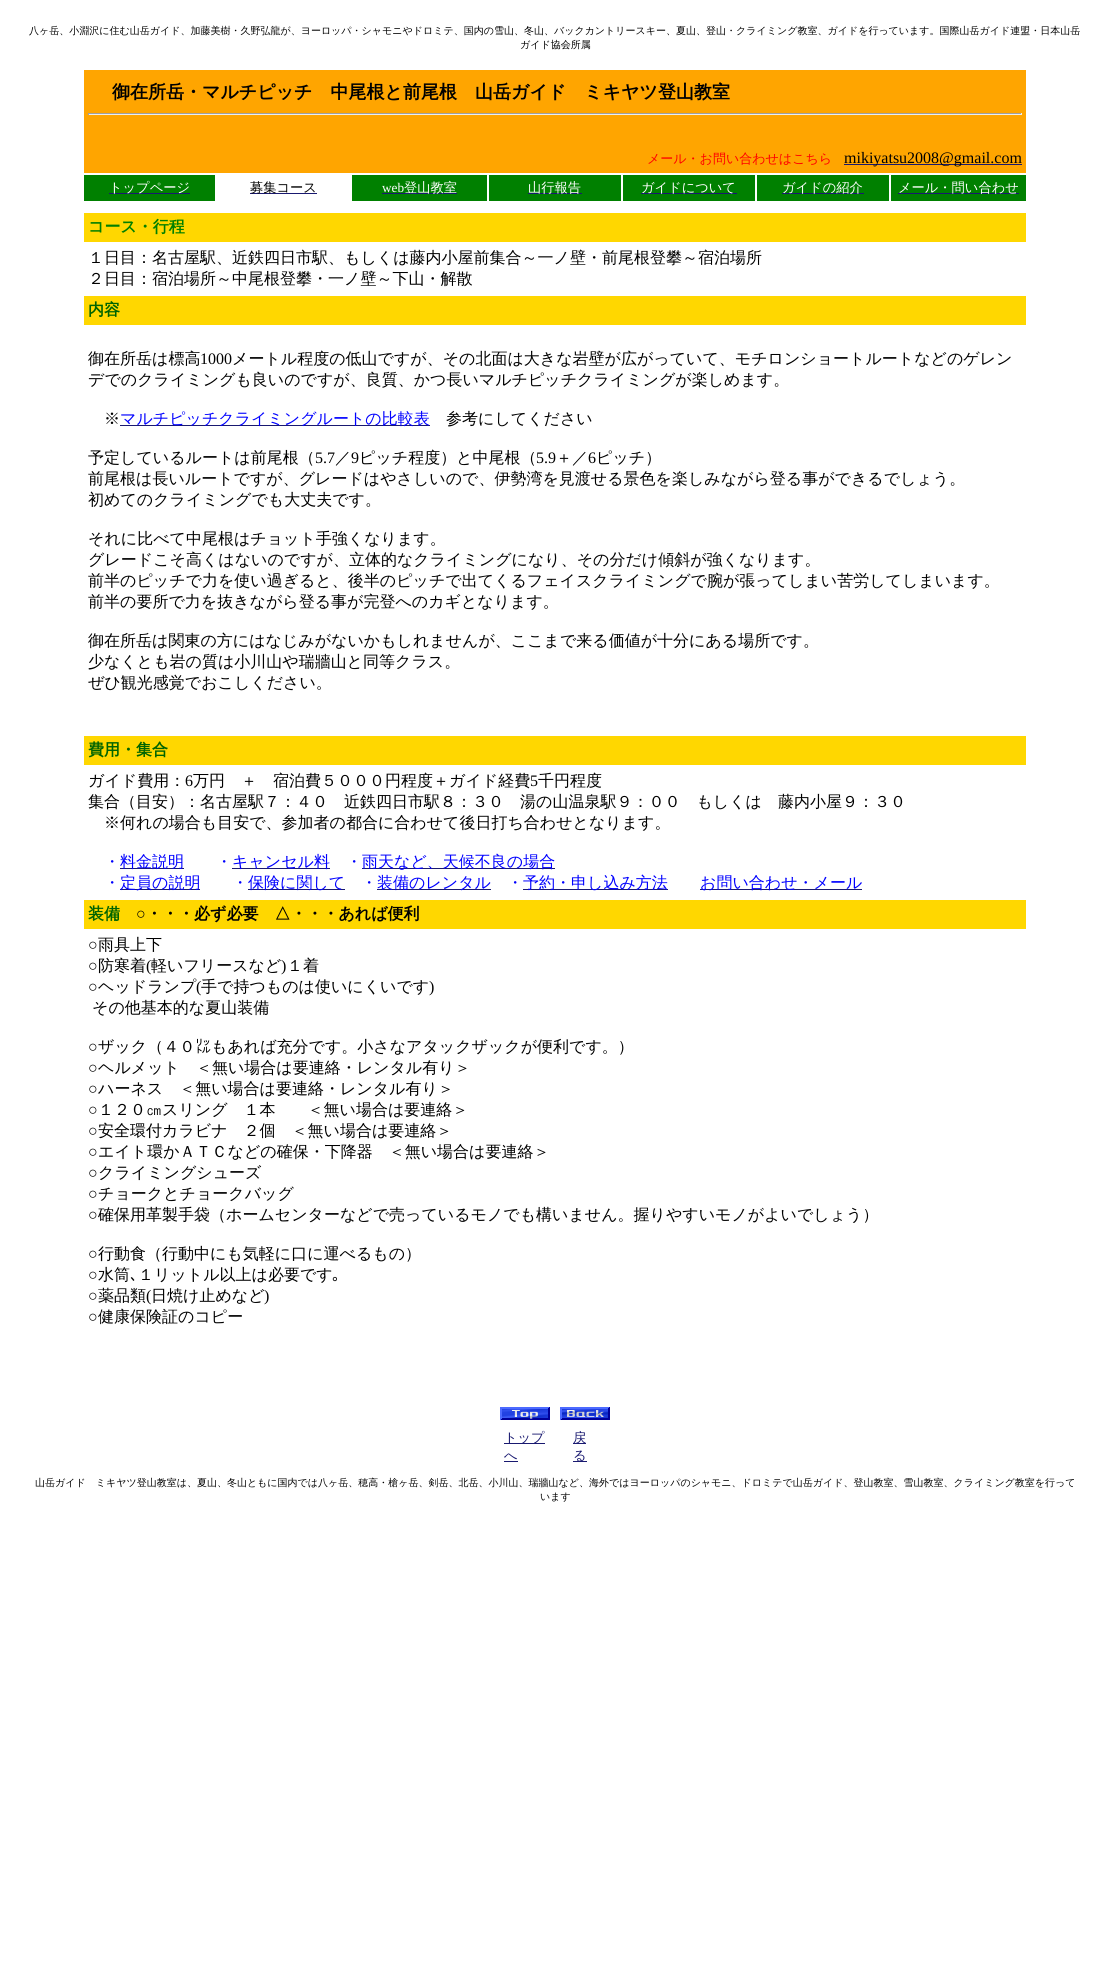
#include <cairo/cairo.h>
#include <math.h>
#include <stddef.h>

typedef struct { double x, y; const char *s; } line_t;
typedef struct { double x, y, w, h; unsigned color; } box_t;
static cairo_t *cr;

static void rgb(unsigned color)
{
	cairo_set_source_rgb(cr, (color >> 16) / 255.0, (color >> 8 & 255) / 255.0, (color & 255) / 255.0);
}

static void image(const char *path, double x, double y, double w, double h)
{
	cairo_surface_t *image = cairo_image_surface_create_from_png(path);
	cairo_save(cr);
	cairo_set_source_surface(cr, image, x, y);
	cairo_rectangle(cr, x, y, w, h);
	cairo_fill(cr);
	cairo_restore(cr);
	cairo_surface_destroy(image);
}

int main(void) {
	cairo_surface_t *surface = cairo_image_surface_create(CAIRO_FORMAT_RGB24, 1110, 1962);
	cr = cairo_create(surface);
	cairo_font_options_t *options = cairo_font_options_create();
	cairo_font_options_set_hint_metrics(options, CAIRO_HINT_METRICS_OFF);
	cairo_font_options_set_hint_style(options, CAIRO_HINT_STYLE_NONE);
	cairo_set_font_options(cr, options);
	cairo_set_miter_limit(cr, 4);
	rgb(0xffffff);
	cairo_paint(cr);
	{
		static const box_t items[] = {
			{84, 70, 942, 103, 0xffa500},
			{88, 113, 934, 1, 0x9f9f9f},
			{1021, 113, 1, 2, 0xeeeeee},
			{88, 114, 934, 1, 0xeeeeee},
			{88, 113, 1, 2, 0x9f9f9f},
			{844, 164, 178, 1, 0x191970},
			{84, 175, 131, 26, 0x008000},
			{109, 193, 81, 1, 0x191970},
			{250, 193, 67, 1, 0x191970},
			{352, 175, 135, 26, 0x008000},
			{382, 193, 75, 1, 0x191970},
			{489, 175, 132, 26, 0x008000},
			{528, 193, 54, 1, 0x191970},
			{623, 175, 132, 26, 0x008000},
			{641, 193, 96, 1, 0x191970},
			{757, 175, 132, 26, 0x008000},
			{782, 193, 82, 1, 0x191970},
			{891, 175, 135, 26, 0x008000},
			{898, 193, 121, 1, 0x191970},
			{84, 213, 942, 29, 0xffd700},
			{84, 296, 942, 29, 0xffd700},
			{120, 425, 310, 1, 0x191970},
			{84, 736, 942, 29, 0xffd700},
			{120, 868, 64, 1, 0x191970},
			{232, 868, 98, 1, 0x191970},
			{362, 868, 193, 1, 0x191970},
			{120, 889, 80, 1, 0x191970},
			{248, 889, 97, 1, 0x191970},
			{377, 889, 114, 1, 0x191970},
			{523, 889, 145, 1, 0x191970},
			{700, 889, 162, 1, 0x191970},
			{84, 900, 942, 29, 0xffd700},
		};
		for (size_t i = 0; i < sizeof items / sizeof *items; i++) {
			rgb(items[i].color);
			cairo_rectangle(cr, items[i].x, items[i].y, items[i].w, items[i].h);
			cairo_fill(cr);
		}
	}
	image("img/1.png", 500, 1407, 50, 13);
	rgb(0x191970);
	cairo_rectangle(cr, 504, 1443, 41, 1);
	cairo_fill(cr);
	cairo_rectangle(cr, 504, 1461, 14, 1);
	cairo_fill(cr);
	image("img/2.png", 560, 1407, 50, 13);
	cairo_rectangle(cr, 573, 1443, 13, 1);
	cairo_fill(cr);
	cairo_rectangle(cr, 573, 1461, 14, 1);
	cairo_fill(cr);
	cairo_select_font_face(cr, "WenQuanYi Zen Hei Medium", CAIRO_FONT_SLANT_NORMAL, CAIRO_FONT_WEIGHT_NORMAL);
	cairo_set_font_size(cr, 10);
	rgb(0x000000);
	cairo_move_to(cr, 29, 34);
	cairo_show_text(cr, "八ヶ岳、小淵沢に住む山岳ガイド、加藤美樹・久野弘龍が、ヨーロッパ・シャモニやドロミテ、国内の雪山、冬山、バックカントリースキー、夏山、登山・クライミング教室、ガイドを行っています。国際山岳ガイド連盟・日本山岳");
	cairo_move_to(cr, 520, 48);
	cairo_show_text(cr, "ガイド協会所属");
	cairo_select_font_face(cr, "WenQuanYi Zen Hei", CAIRO_FONT_SLANT_NORMAL, CAIRO_FONT_WEIGHT_BOLD);
	cairo_set_font_size(cr, 18);
	cairo_move_to(cr, 112, 98);
	cairo_show_text(cr, "御在所岳・マルチピッチ　中尾根と前尾根　山岳ガイド　ミキヤツ登山教室");
	cairo_select_font_face(cr, "WenQuanYi Zen Hei Medium", CAIRO_FONT_SLANT_NORMAL, CAIRO_FONT_WEIGHT_NORMAL);
	cairo_set_font_size(cr, 13);
	rgb(0xff0000);
	cairo_move_to(cr, 647, 163);
	cairo_show_text(cr, "メール・お問い合わせはこちら");
	cairo_select_font_face(cr, "Liberation Serif", CAIRO_FONT_SLANT_NORMAL, CAIRO_FONT_WEIGHT_NORMAL);
	cairo_set_font_size(cr, 16);
	rgb(0x000000);
	cairo_move_to(cr, 844, 163);
	cairo_show_text(cr, "mikiyatsu2008@gmail.com");
	cairo_select_font_face(cr, "WenQuanYi Zen Hei Medium", CAIRO_FONT_SLANT_NORMAL, CAIRO_FONT_WEIGHT_NORMAL);
	cairo_set_font_size(cr, 13.25);
	rgb(0xffffff);
	cairo_move_to(cr, 109, 192);
	cairo_show_text(cr, "トップページ");
	rgb(0x000000);
	cairo_move_to(cr, 250, 192);
	cairo_show_text(cr, "募集コース");
	cairo_select_font_face(cr, "Liberation Serif", CAIRO_FONT_SLANT_NORMAL, CAIRO_FONT_WEIGHT_NORMAL);
	rgb(0xffffff);
	cairo_move_to(cr, 382, 192);
	cairo_show_text(cr, "web");
	cairo_select_font_face(cr, "WenQuanYi Zen Hei Medium", CAIRO_FONT_SLANT_NORMAL, CAIRO_FONT_WEIGHT_NORMAL);
	{
		static const line_t items[] = {
			{404, 192, "登山教室"},
			{528, 192, "山行報告"},
			{641, 192, "ガイドについて"},
			{782, 192, "ガイドの紹介"},
			{898, 192, "メール・問い合わせ"},
		};
		for (size_t i = 0; i < sizeof items / sizeof *items; i++) {
			cairo_move_to(cr, items[i].x, items[i].y);
			cairo_show_text(cr, items[i].s);
		}
	}
	cairo_select_font_face(cr, "WenQuanYi Zen Hei", CAIRO_FONT_SLANT_NORMAL, CAIRO_FONT_WEIGHT_BOLD);
	cairo_set_font_size(cr, 16);
	rgb(0x008000);
	cairo_move_to(cr, 88, 232);
	cairo_show_text(cr, "コース・行程");
	cairo_select_font_face(cr, "WenQuanYi Zen Hei Medium", CAIRO_FONT_SLANT_NORMAL, CAIRO_FONT_WEIGHT_NORMAL);
	rgb(0x000000);
	cairo_move_to(cr, 88, 263);
	cairo_show_text(cr, "１日目：名古屋駅、近鉄四日市駅、もしくは藤内小屋前集合～一ノ壁・前尾根登攀～宿泊場所");
	cairo_move_to(cr, 88, 284);
	cairo_show_text(cr, "２日目：宿泊場所～中尾根登攀・一ノ壁～下山・解散");
	cairo_select_font_face(cr, "WenQuanYi Zen Hei", CAIRO_FONT_SLANT_NORMAL, CAIRO_FONT_WEIGHT_BOLD);
	rgb(0x006400);
	cairo_move_to(cr, 88, 315);
	cairo_show_text(cr, "内容");
	cairo_select_font_face(cr, "WenQuanYi Zen Hei Medium", CAIRO_FONT_SLANT_NORMAL, CAIRO_FONT_WEIGHT_NORMAL);
	rgb(0x000000);
	cairo_move_to(cr, 88, 364);
	cairo_show_text(cr, "御在所岳は標高");
	cairo_select_font_face(cr, "Liberation Serif", CAIRO_FONT_SLANT_NORMAL, CAIRO_FONT_WEIGHT_NORMAL);
	cairo_move_to(cr, 200, 364);
	cairo_show_text(cr, "1000");
	cairo_select_font_face(cr, "WenQuanYi Zen Hei Medium", CAIRO_FONT_SLANT_NORMAL, CAIRO_FONT_WEIGHT_NORMAL);
	{
		static const line_t items[] = {
			{232, 364, "メートル程度の低山ですが、その北面は大きな岩壁が広がっていて、モチロンショートルートなどのゲレン"},
			{88, 385, "デでのクライミングも良いのですが、良質、かつ長いマルチピッチクライミングが楽しめます。"},
			{104, 424, "※"},
		};
		for (size_t i = 0; i < sizeof items / sizeof *items; i++) {
			cairo_move_to(cr, items[i].x, items[i].y);
			cairo_show_text(cr, items[i].s);
		}
	}
	rgb(0x0000ff);
	cairo_move_to(cr, 120, 424);
	cairo_show_text(cr, "マルチピッチクライミングルートの比較表");
	rgb(0x000000);
	cairo_move_to(cr, 446, 424);
	cairo_show_text(cr, "参考にしてください");
	cairo_move_to(cr, 88, 463);
	cairo_show_text(cr, "予定しているルートは前尾根（");
	cairo_select_font_face(cr, "Liberation Serif", CAIRO_FONT_SLANT_NORMAL, CAIRO_FONT_WEIGHT_NORMAL);
	cairo_move_to(cr, 315, 463);
	cairo_show_text(cr, "5.7");
	cairo_select_font_face(cr, "WenQuanYi Zen Hei Medium", CAIRO_FONT_SLANT_NORMAL, CAIRO_FONT_WEIGHT_NORMAL);
	cairo_move_to(cr, 335, 463);
	cairo_show_text(cr, "／");
	cairo_select_font_face(cr, "Liberation Serif", CAIRO_FONT_SLANT_NORMAL, CAIRO_FONT_WEIGHT_NORMAL);
	cairo_move_to(cr, 351, 463);
	cairo_show_text(cr, "9");
	cairo_select_font_face(cr, "WenQuanYi Zen Hei Medium", CAIRO_FONT_SLANT_NORMAL, CAIRO_FONT_WEIGHT_NORMAL);
	cairo_move_to(cr, 359, 463);
	cairo_show_text(cr, "ピッチ程度）と中尾根（");
	cairo_select_font_face(cr, "Liberation Serif", CAIRO_FONT_SLANT_NORMAL, CAIRO_FONT_WEIGHT_NORMAL);
	cairo_move_to(cr, 536, 463);
	cairo_show_text(cr, "5.9");
	cairo_select_font_face(cr, "WenQuanYi Zen Hei Medium", CAIRO_FONT_SLANT_NORMAL, CAIRO_FONT_WEIGHT_NORMAL);
	cairo_move_to(cr, 556, 463);
	cairo_show_text(cr, "＋／");
	cairo_select_font_face(cr, "Liberation Serif", CAIRO_FONT_SLANT_NORMAL, CAIRO_FONT_WEIGHT_NORMAL);
	cairo_move_to(cr, 588, 463);
	cairo_show_text(cr, "6");
	cairo_select_font_face(cr, "WenQuanYi Zen Hei Medium", CAIRO_FONT_SLANT_NORMAL, CAIRO_FONT_WEIGHT_NORMAL);
	{
		static const line_t items[] = {
			{596, 463, "ピッチ）"},
			{88, 484, "前尾根は長いルートですが、グレードはやさしいので、伊勢湾を見渡せる景色を楽しみながら登る事ができるでしょう。"},
			{88, 505, "初めてのクライミングでも大丈夫です。"},
			{88, 544, "それに比べて中尾根はチョット手強くなります。"},
			{88, 565, "グレードこそ高くはないのですが、立体的なクライミングになり、その分だけ傾斜が強くなります。"},
			{88, 586, "前半のピッチで力を使い過ぎると、後半のピッチで出てくるフェイスクライミングで腕が張ってしまい苦労してしまいます。"},
			{88, 607, "前半の要所で力を抜きながら登る事が完登へのカギとなります。"},
			{88, 646, "御在所岳は関東の方にはなじみがないかもしれませんが、ここまで来る価値が十分にある場所です。"},
			{88, 667, "少なくとも岩の質は小川山や瑞牆山と同等クラス。"},
			{88, 688, "ぜひ観光感覚でおこしください。"},
		};
		for (size_t i = 0; i < sizeof items / sizeof *items; i++) {
			cairo_move_to(cr, items[i].x, items[i].y);
			cairo_show_text(cr, items[i].s);
		}
	}
	cairo_select_font_face(cr, "WenQuanYi Zen Hei", CAIRO_FONT_SLANT_NORMAL, CAIRO_FONT_WEIGHT_BOLD);
	rgb(0x006400);
	cairo_move_to(cr, 88, 755);
	cairo_show_text(cr, "費用・集合");
	cairo_select_font_face(cr, "WenQuanYi Zen Hei Medium", CAIRO_FONT_SLANT_NORMAL, CAIRO_FONT_WEIGHT_NORMAL);
	rgb(0x000000);
	cairo_move_to(cr, 88, 786);
	cairo_show_text(cr, "ガイド費用：");
	cairo_select_font_face(cr, "Liberation Serif", CAIRO_FONT_SLANT_NORMAL, CAIRO_FONT_WEIGHT_NORMAL);
	cairo_move_to(cr, 185, 786);
	cairo_show_text(cr, "6");
	cairo_select_font_face(cr, "WenQuanYi Zen Hei Medium", CAIRO_FONT_SLANT_NORMAL, CAIRO_FONT_WEIGHT_NORMAL);
	cairo_move_to(cr, 193, 786);
	cairo_show_text(cr, "万円　＋　宿泊費５０００円程度＋ガイド経費");
	cairo_select_font_face(cr, "Liberation Serif", CAIRO_FONT_SLANT_NORMAL, CAIRO_FONT_WEIGHT_NORMAL);
	cairo_move_to(cr, 530, 786);
	cairo_show_text(cr, "5");
	cairo_select_font_face(cr, "WenQuanYi Zen Hei Medium", CAIRO_FONT_SLANT_NORMAL, CAIRO_FONT_WEIGHT_NORMAL);
	{
		static const line_t items[] = {
			{538, 786, "千円程度"},
			{88, 807, "集合（目安）：名古屋駅７：４０　近鉄四日市駅８：３０　湯の山温泉駅９：００　もしくは　藤内小屋９：３０"},
			{104, 828, "※何れの場合も目安で、参加者の都合に合わせて後日打ち合わせとなります。"},
		};
		for (size_t i = 0; i < sizeof items / sizeof *items; i++) {
			cairo_move_to(cr, items[i].x, items[i].y);
			cairo_show_text(cr, items[i].s);
		}
	}
	rgb(0x0000ff);
	{
		static const line_t items[] = {
			{104, 867, "・"},
			{120, 867, "料金説明"},
			{216, 867, "・"},
			{232, 867, "キャンセル料"},
			{346, 867, "・"},
			{362, 867, "雨天など、天候不良の場合"},
			{104, 888, "・"},
			{120, 888, "定員の説明"},
			{232, 888, "・"},
			{248, 888, "保険に関して"},
			{361, 888, "・"},
			{377, 888, "装備のレンタル"},
			{507, 888, "・"},
			{523, 888, "予約・申し込み方法"},
			{700, 888, "お問い合わせ・メール"},
		};
		for (size_t i = 0; i < sizeof items / sizeof *items; i++) {
			cairo_move_to(cr, items[i].x, items[i].y);
			cairo_show_text(cr, items[i].s);
		}
	}
	cairo_select_font_face(cr, "WenQuanYi Zen Hei", CAIRO_FONT_SLANT_NORMAL, CAIRO_FONT_WEIGHT_BOLD);
	rgb(0x006400);
	cairo_move_to(cr, 88, 919);
	cairo_show_text(cr, "装備");
	cairo_select_font_face(cr, "Liberation Serif", CAIRO_FONT_SLANT_NORMAL, CAIRO_FONT_WEIGHT_BOLD);
	rgb(0x000000);
	cairo_move_to(cr, 136, 919);
	cairo_show_text(cr, "○");
	cairo_select_font_face(cr, "WenQuanYi Zen Hei", CAIRO_FONT_SLANT_NORMAL, CAIRO_FONT_WEIGHT_BOLD);
	cairo_move_to(cr, 146, 919);
	cairo_show_text(cr, "・・・必ず必要　△・・・あれば便利");
	cairo_select_font_face(cr, "Liberation Serif", CAIRO_FONT_SLANT_NORMAL, CAIRO_FONT_WEIGHT_NORMAL);
	cairo_move_to(cr, 88, 950);
	cairo_show_text(cr, "○");
	cairo_select_font_face(cr, "WenQuanYi Zen Hei Medium", CAIRO_FONT_SLANT_NORMAL, CAIRO_FONT_WEIGHT_NORMAL);
	cairo_move_to(cr, 98, 950);
	cairo_show_text(cr, "雨具上下");
	cairo_select_font_face(cr, "Liberation Serif", CAIRO_FONT_SLANT_NORMAL, CAIRO_FONT_WEIGHT_NORMAL);
	cairo_move_to(cr, 88, 971);
	cairo_show_text(cr, "○");
	cairo_select_font_face(cr, "WenQuanYi Zen Hei Medium", CAIRO_FONT_SLANT_NORMAL, CAIRO_FONT_WEIGHT_NORMAL);
	cairo_move_to(cr, 98, 971);
	cairo_show_text(cr, "防寒着");
	cairo_select_font_face(cr, "Liberation Serif", CAIRO_FONT_SLANT_NORMAL, CAIRO_FONT_WEIGHT_NORMAL);
	cairo_move_to(cr, 146, 971);
	cairo_show_text(cr, "(");
	cairo_select_font_face(cr, "WenQuanYi Zen Hei Medium", CAIRO_FONT_SLANT_NORMAL, CAIRO_FONT_WEIGHT_NORMAL);
	cairo_move_to(cr, 151, 971);
	cairo_show_text(cr, "軽いフリースなど");
	cairo_select_font_face(cr, "Liberation Serif", CAIRO_FONT_SLANT_NORMAL, CAIRO_FONT_WEIGHT_NORMAL);
	cairo_move_to(cr, 281, 971);
	cairo_show_text(cr, ")");
	cairo_select_font_face(cr, "WenQuanYi Zen Hei Medium", CAIRO_FONT_SLANT_NORMAL, CAIRO_FONT_WEIGHT_NORMAL);
	cairo_move_to(cr, 287, 971);
	cairo_show_text(cr, "１着");
	cairo_select_font_face(cr, "Liberation Serif", CAIRO_FONT_SLANT_NORMAL, CAIRO_FONT_WEIGHT_NORMAL);
	cairo_move_to(cr, 88, 992);
	cairo_show_text(cr, "○");
	cairo_select_font_face(cr, "WenQuanYi Zen Hei Medium", CAIRO_FONT_SLANT_NORMAL, CAIRO_FONT_WEIGHT_NORMAL);
	cairo_move_to(cr, 98, 992);
	cairo_show_text(cr, "ヘッドランプ");
	cairo_select_font_face(cr, "Liberation Serif", CAIRO_FONT_SLANT_NORMAL, CAIRO_FONT_WEIGHT_NORMAL);
	cairo_move_to(cr, 196, 992);
	cairo_show_text(cr, "(");
	cairo_select_font_face(cr, "WenQuanYi Zen Hei Medium", CAIRO_FONT_SLANT_NORMAL, CAIRO_FONT_WEIGHT_NORMAL);
	cairo_move_to(cr, 201, 992);
	cairo_show_text(cr, "手で持つものは使いにくいです");
	cairo_select_font_face(cr, "Liberation Serif", CAIRO_FONT_SLANT_NORMAL, CAIRO_FONT_WEIGHT_NORMAL);
	cairo_move_to(cr, 429, 992);
	cairo_show_text(cr, ")");
	cairo_select_font_face(cr, "WenQuanYi Zen Hei Medium", CAIRO_FONT_SLANT_NORMAL, CAIRO_FONT_WEIGHT_NORMAL);
	cairo_move_to(cr, 92, 1013);
	cairo_show_text(cr, "その他基本的な夏山装備");
	cairo_select_font_face(cr, "Liberation Serif", CAIRO_FONT_SLANT_NORMAL, CAIRO_FONT_WEIGHT_NORMAL);
	cairo_move_to(cr, 88, 1052);
	cairo_show_text(cr, "○");
	cairo_select_font_face(cr, "WenQuanYi Zen Hei Medium", CAIRO_FONT_SLANT_NORMAL, CAIRO_FONT_WEIGHT_NORMAL);
	cairo_move_to(cr, 98, 1052);
	cairo_show_text(cr, "ザック（４０");
	cairo_select_font_face(cr, "IPAPGothic", CAIRO_FONT_SLANT_NORMAL, CAIRO_FONT_WEIGHT_NORMAL);
	cairo_move_to(cr, 195, 1052);
	cairo_show_text(cr, "㍑");
	cairo_select_font_face(cr, "WenQuanYi Zen Hei Medium", CAIRO_FONT_SLANT_NORMAL, CAIRO_FONT_WEIGHT_NORMAL);
	cairo_move_to(cr, 211, 1052);
	cairo_show_text(cr, "もあれば充分です。小さなアタックザックが便利です。）");
	cairo_select_font_face(cr, "Liberation Serif", CAIRO_FONT_SLANT_NORMAL, CAIRO_FONT_WEIGHT_NORMAL);
	cairo_move_to(cr, 88, 1073);
	cairo_show_text(cr, "○");
	cairo_select_font_face(cr, "WenQuanYi Zen Hei Medium", CAIRO_FONT_SLANT_NORMAL, CAIRO_FONT_WEIGHT_NORMAL);
	cairo_move_to(cr, 98, 1073);
	cairo_show_text(cr, "ヘルメット　＜無い場合は要連絡・レンタル有り＞");
	cairo_select_font_face(cr, "Liberation Serif", CAIRO_FONT_SLANT_NORMAL, CAIRO_FONT_WEIGHT_NORMAL);
	cairo_move_to(cr, 88, 1094);
	cairo_show_text(cr, "○");
	cairo_select_font_face(cr, "WenQuanYi Zen Hei Medium", CAIRO_FONT_SLANT_NORMAL, CAIRO_FONT_WEIGHT_NORMAL);
	cairo_move_to(cr, 98, 1094);
	cairo_show_text(cr, "ハーネス　＜無い場合は要連絡・レンタル有り＞");
	cairo_select_font_face(cr, "Liberation Serif", CAIRO_FONT_SLANT_NORMAL, CAIRO_FONT_WEIGHT_NORMAL);
	cairo_move_to(cr, 88, 1115);
	cairo_show_text(cr, "○");
	cairo_select_font_face(cr, "WenQuanYi Zen Hei Medium", CAIRO_FONT_SLANT_NORMAL, CAIRO_FONT_WEIGHT_NORMAL);
	cairo_move_to(cr, 98, 1115);
	cairo_show_text(cr, "１２０㎝スリング　１本　　＜無い場合は要連絡＞");
	cairo_select_font_face(cr, "Liberation Serif", CAIRO_FONT_SLANT_NORMAL, CAIRO_FONT_WEIGHT_NORMAL);
	cairo_move_to(cr, 88, 1136);
	cairo_show_text(cr, "○");
	cairo_select_font_face(cr, "WenQuanYi Zen Hei Medium", CAIRO_FONT_SLANT_NORMAL, CAIRO_FONT_WEIGHT_NORMAL);
	cairo_move_to(cr, 98, 1136);
	cairo_show_text(cr, "安全環付カラビナ　２個　＜無い場合は要連絡＞");
	cairo_select_font_face(cr, "Liberation Serif", CAIRO_FONT_SLANT_NORMAL, CAIRO_FONT_WEIGHT_NORMAL);
	cairo_move_to(cr, 88, 1157);
	cairo_show_text(cr, "○");
	cairo_select_font_face(cr, "WenQuanYi Zen Hei Medium", CAIRO_FONT_SLANT_NORMAL, CAIRO_FONT_WEIGHT_NORMAL);
	cairo_move_to(cr, 98, 1157);
	cairo_show_text(cr, "エイト環かＡＴＣなどの確保・下降器　＜無い場合は要連絡＞");
	cairo_select_font_face(cr, "Liberation Serif", CAIRO_FONT_SLANT_NORMAL, CAIRO_FONT_WEIGHT_NORMAL);
	cairo_move_to(cr, 88, 1178);
	cairo_show_text(cr, "○");
	cairo_select_font_face(cr, "WenQuanYi Zen Hei Medium", CAIRO_FONT_SLANT_NORMAL, CAIRO_FONT_WEIGHT_NORMAL);
	cairo_move_to(cr, 98, 1178);
	cairo_show_text(cr, "クライミングシューズ");
	cairo_select_font_face(cr, "Liberation Serif", CAIRO_FONT_SLANT_NORMAL, CAIRO_FONT_WEIGHT_NORMAL);
	cairo_move_to(cr, 88, 1199);
	cairo_show_text(cr, "○");
	cairo_select_font_face(cr, "WenQuanYi Zen Hei Medium", CAIRO_FONT_SLANT_NORMAL, CAIRO_FONT_WEIGHT_NORMAL);
	cairo_move_to(cr, 98, 1199);
	cairo_show_text(cr, "チョークとチョークバッグ");
	cairo_select_font_face(cr, "Liberation Serif", CAIRO_FONT_SLANT_NORMAL, CAIRO_FONT_WEIGHT_NORMAL);
	cairo_move_to(cr, 88, 1220);
	cairo_show_text(cr, "○");
	cairo_select_font_face(cr, "WenQuanYi Zen Hei Medium", CAIRO_FONT_SLANT_NORMAL, CAIRO_FONT_WEIGHT_NORMAL);
	cairo_move_to(cr, 98, 1220);
	cairo_show_text(cr, "確保用革製手袋（ホームセンターなどで売っているモノでも構いません。握りやすいモノがよいでしょう）");
	cairo_select_font_face(cr, "Liberation Serif", CAIRO_FONT_SLANT_NORMAL, CAIRO_FONT_WEIGHT_NORMAL);
	cairo_move_to(cr, 88, 1259);
	cairo_show_text(cr, "○");
	cairo_select_font_face(cr, "WenQuanYi Zen Hei Medium", CAIRO_FONT_SLANT_NORMAL, CAIRO_FONT_WEIGHT_NORMAL);
	cairo_move_to(cr, 98, 1259);
	cairo_show_text(cr, "行動食（行動中にも気軽に口に運べるもの）");
	cairo_select_font_face(cr, "Liberation Serif", CAIRO_FONT_SLANT_NORMAL, CAIRO_FONT_WEIGHT_NORMAL);
	cairo_move_to(cr, 88, 1280);
	cairo_show_text(cr, "○");
	cairo_select_font_face(cr, "WenQuanYi Zen Hei Medium", CAIRO_FONT_SLANT_NORMAL, CAIRO_FONT_WEIGHT_NORMAL);
	cairo_move_to(cr, 98, 1280);
	cairo_show_text(cr, "水筒");
	cairo_select_font_face(cr, "IPAPGothic", CAIRO_FONT_SLANT_NORMAL, CAIRO_FONT_WEIGHT_NORMAL);
	cairo_move_to(cr, 130, 1280);
	cairo_show_text(cr, "､");
	cairo_select_font_face(cr, "WenQuanYi Zen Hei Medium", CAIRO_FONT_SLANT_NORMAL, CAIRO_FONT_WEIGHT_NORMAL);
	cairo_move_to(cr, 138, 1280);
	cairo_show_text(cr, "１リットル以上は必要です");
	cairo_select_font_face(cr, "IPAPGothic", CAIRO_FONT_SLANT_NORMAL, CAIRO_FONT_WEIGHT_NORMAL);
	cairo_move_to(cr, 332, 1280);
	cairo_show_text(cr, "｡");
	cairo_select_font_face(cr, "Liberation Serif", CAIRO_FONT_SLANT_NORMAL, CAIRO_FONT_WEIGHT_NORMAL);
	cairo_move_to(cr, 88, 1301);
	cairo_show_text(cr, "○");
	cairo_select_font_face(cr, "WenQuanYi Zen Hei Medium", CAIRO_FONT_SLANT_NORMAL, CAIRO_FONT_WEIGHT_NORMAL);
	cairo_move_to(cr, 98, 1301);
	cairo_show_text(cr, "薬品類");
	cairo_select_font_face(cr, "Liberation Serif", CAIRO_FONT_SLANT_NORMAL, CAIRO_FONT_WEIGHT_NORMAL);
	cairo_move_to(cr, 146, 1301);
	cairo_show_text(cr, "(");
	cairo_select_font_face(cr, "WenQuanYi Zen Hei Medium", CAIRO_FONT_SLANT_NORMAL, CAIRO_FONT_WEIGHT_NORMAL);
	cairo_move_to(cr, 151, 1301);
	cairo_show_text(cr, "日焼け止めなど");
	cairo_select_font_face(cr, "Liberation Serif", CAIRO_FONT_SLANT_NORMAL, CAIRO_FONT_WEIGHT_NORMAL);
	cairo_move_to(cr, 264, 1301);
	cairo_show_text(cr, ")");
	cairo_move_to(cr, 88, 1322);
	cairo_show_text(cr, "○");
	cairo_select_font_face(cr, "WenQuanYi Zen Hei Medium", CAIRO_FONT_SLANT_NORMAL, CAIRO_FONT_WEIGHT_NORMAL);
	cairo_move_to(cr, 98, 1322);
	cairo_show_text(cr, "健康保険証のコピー");
	cairo_set_font_size(cr, 13.25);
	rgb(0x191970);
	{
		static const line_t items[] = {
			{504, 1442, "トップ"},
			{504, 1460, "へ"},
			{573, 1442, "戻"},
			{573, 1460, "る"},
		};
		for (size_t i = 0; i < sizeof items / sizeof *items; i++) {
			cairo_move_to(cr, items[i].x, items[i].y);
			cairo_show_text(cr, items[i].s);
		}
	}
	cairo_set_font_size(cr, 10);
	rgb(0x000000);
	cairo_move_to(cr, 35, 1486);
	cairo_show_text(cr, "山岳ガイド　ミキヤツ登山教室は、夏山、冬山ともに国内では八ヶ岳、穂高・槍ヶ岳、剣岳、北岳、小川山、瑞牆山など、海外ではヨーロッパのシャモニ、ドロミテで山岳ガイド、登山教室、雪山教室、クライミング教室を行って");
	cairo_move_to(cr, 540, 1500);
	cairo_show_text(cr, "います");
	cairo_surface_write_to_png(surface, "page.png");
	cairo_font_options_destroy(options);
	cairo_destroy(cr);
	cairo_surface_destroy(surface);
	return 0;
}
